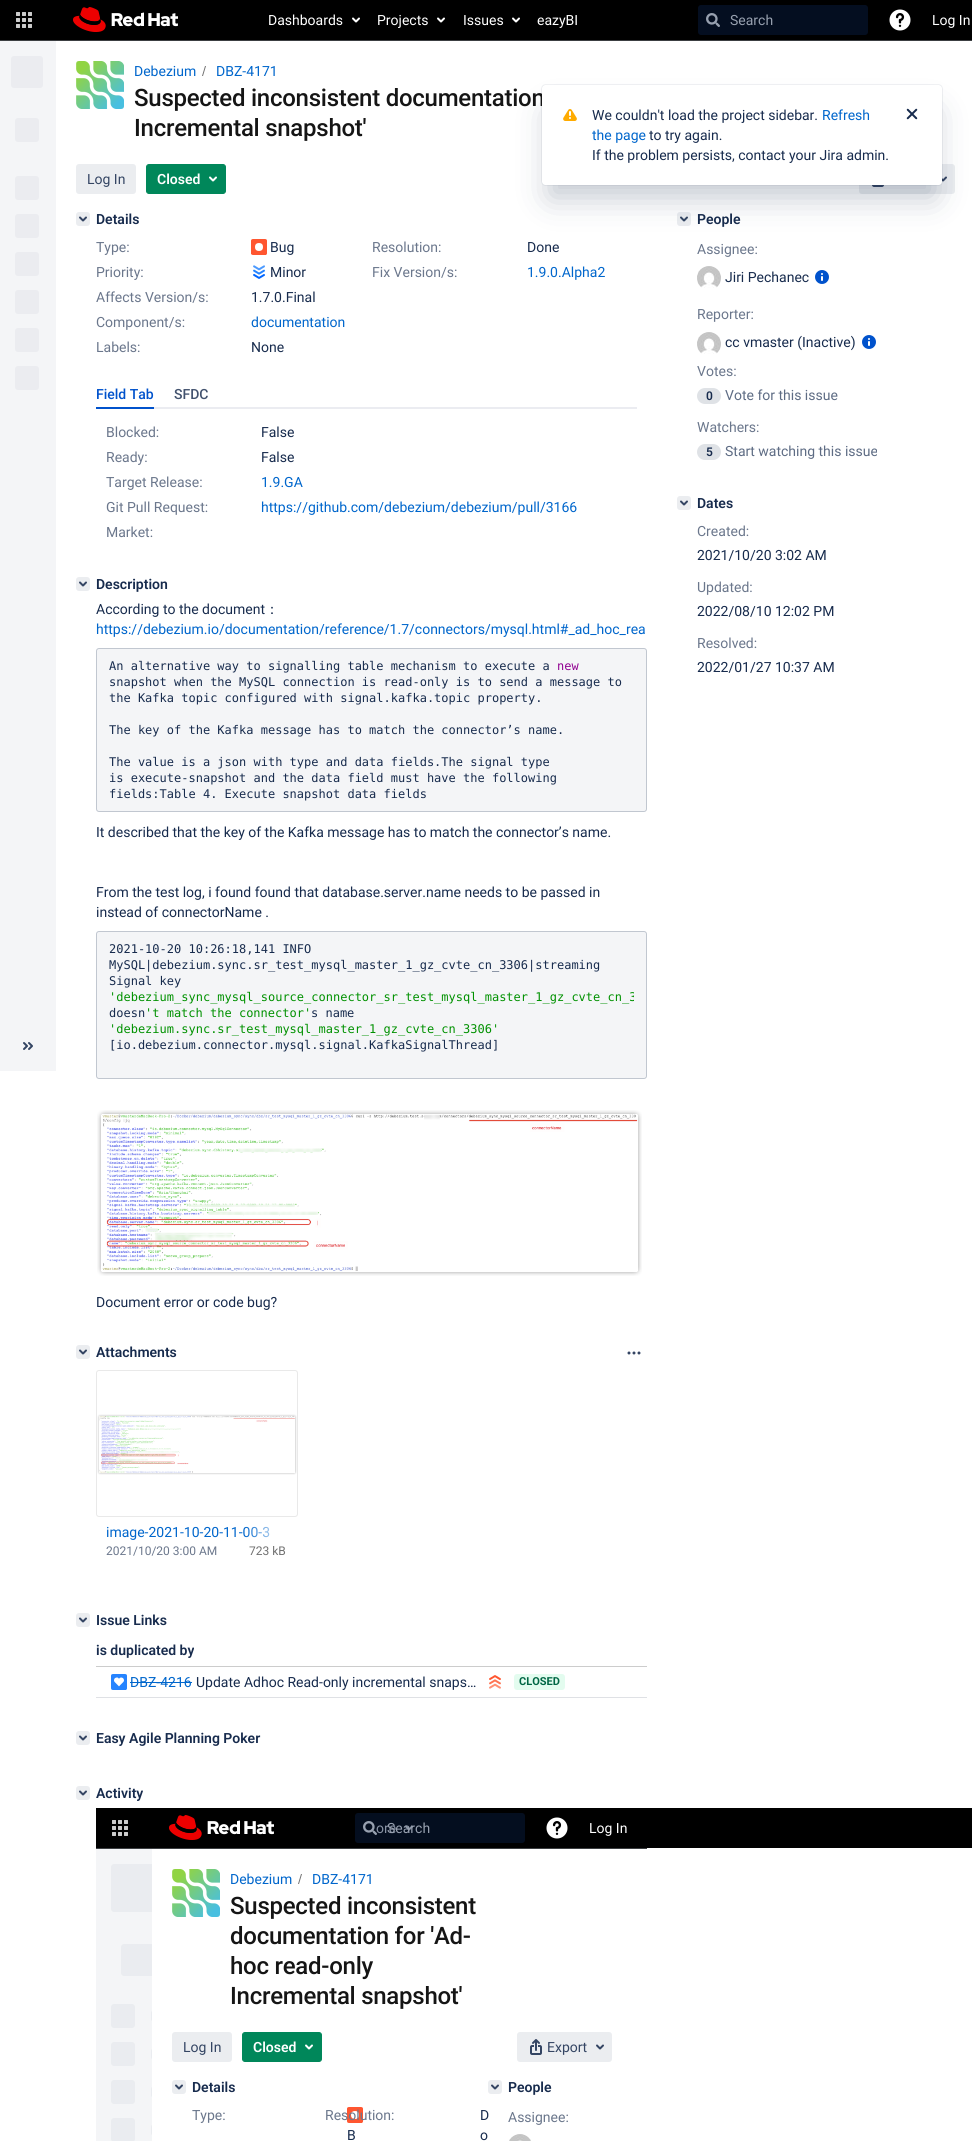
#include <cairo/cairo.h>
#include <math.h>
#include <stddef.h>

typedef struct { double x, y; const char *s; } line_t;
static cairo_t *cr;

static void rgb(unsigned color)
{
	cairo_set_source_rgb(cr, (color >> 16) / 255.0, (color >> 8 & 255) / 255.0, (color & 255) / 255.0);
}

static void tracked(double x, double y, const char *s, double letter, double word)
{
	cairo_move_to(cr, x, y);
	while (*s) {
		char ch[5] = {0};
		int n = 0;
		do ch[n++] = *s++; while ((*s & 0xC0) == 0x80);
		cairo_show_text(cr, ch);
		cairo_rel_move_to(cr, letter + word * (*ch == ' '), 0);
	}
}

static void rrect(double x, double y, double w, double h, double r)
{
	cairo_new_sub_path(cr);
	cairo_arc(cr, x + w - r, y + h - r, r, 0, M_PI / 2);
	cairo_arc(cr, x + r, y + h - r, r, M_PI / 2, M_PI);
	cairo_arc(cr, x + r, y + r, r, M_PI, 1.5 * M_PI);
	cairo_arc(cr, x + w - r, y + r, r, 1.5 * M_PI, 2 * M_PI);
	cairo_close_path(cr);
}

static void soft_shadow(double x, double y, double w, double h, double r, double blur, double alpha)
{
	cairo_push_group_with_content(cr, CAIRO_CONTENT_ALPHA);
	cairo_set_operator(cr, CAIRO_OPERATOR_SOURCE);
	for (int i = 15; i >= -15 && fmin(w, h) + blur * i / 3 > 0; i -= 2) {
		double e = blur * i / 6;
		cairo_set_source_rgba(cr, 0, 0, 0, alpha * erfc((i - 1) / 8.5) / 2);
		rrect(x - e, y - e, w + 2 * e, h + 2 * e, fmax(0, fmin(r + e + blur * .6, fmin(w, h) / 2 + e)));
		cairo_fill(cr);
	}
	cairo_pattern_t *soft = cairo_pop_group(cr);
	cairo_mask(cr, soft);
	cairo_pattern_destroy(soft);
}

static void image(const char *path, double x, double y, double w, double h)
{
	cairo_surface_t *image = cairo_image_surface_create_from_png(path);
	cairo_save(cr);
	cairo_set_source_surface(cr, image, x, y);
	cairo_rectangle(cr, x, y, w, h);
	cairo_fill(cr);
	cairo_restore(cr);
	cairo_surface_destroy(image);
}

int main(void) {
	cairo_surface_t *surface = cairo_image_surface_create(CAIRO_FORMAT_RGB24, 972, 2141);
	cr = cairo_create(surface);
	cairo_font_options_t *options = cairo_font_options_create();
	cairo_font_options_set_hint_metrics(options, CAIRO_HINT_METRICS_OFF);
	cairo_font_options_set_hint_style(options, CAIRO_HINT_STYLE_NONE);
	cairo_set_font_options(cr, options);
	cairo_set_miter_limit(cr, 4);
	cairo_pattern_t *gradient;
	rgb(0xffffff);
	cairo_paint(cr);
	rgb(0x000000);
	cairo_rectangle(cr, 0, 0, 972, 40);
	cairo_fill(cr);
	rgb(0x3c3f42);
	cairo_rectangle(cr, 0, 40, 972, 1);
	cairo_fill(cr);
	image("img/1.png", 16, 12, 16, 16);
	image("img/2.png", 73, 7, 105, 25);
	image("img/3.png", 352, 17, 8, 6);
	image("img/3.png", 437, 17, 8, 6);
	image("img/3.png", 512, 17, 8, 6);
	rgb(0x040e20);
	rrect(698, 5, 170, 30, 3);
	cairo_fill(cr);
	image("img/4.png", 706, 13, 14, 14);
	image("img/5.png", 889, 9, 22, 22);
	rgb(0xf4f5f7);
	cairo_rectangle(cr, 0, 41, 56, 1030);
	cairo_fill(cr);
	rgb(0xebecf0);
	rrect(11, 56, 32, 32, 3);
	cairo_fill(cr);
	rrect(15, 118, 24, 24, 3);
	cairo_fill(cr);
	rrect(15, 176, 24, 24, 3);
	cairo_fill(cr);
	rrect(15, 214, 24, 24, 3);
	cairo_fill(cr);
	rrect(15, 252, 24, 24, 3);
	cairo_fill(cr);
	rrect(15, 290, 24, 24, 3);
	cairo_fill(cr);
	rrect(15, 328, 24, 24, 3);
	cairo_fill(cr);
	rrect(15, 366, 24, 24, 3);
	cairo_fill(cr);
	image("img/6.png", 23, 1042, 10, 8);
	image("img/7.png", 76, 61, 48, 48);
	rgb(0x707070);
	cairo_new_path(cr);
	cairo_move_to(cr, 203, 76);
	cairo_line_to(cr, 206, 66);
	cairo_line_to(cr, 205, 66);
	cairo_line_to(cr, 202, 76);
	cairo_close_path(cr);
	cairo_fill(cr);
	rgb(0xebedf0);
	rrect(76, 164, 60, 30, 3);
	cairo_fill(cr);
	rgb(0x00875a);
	rrect(146.5, 164.5, 79, 29, 2.5);
	cairo_fill_preserve(cr);
	cairo_set_line_width(cr, 1);
	cairo_stroke(cr);
	image("img/8.png", 209, 176, 8, 6);
	rgb(0xebedf0);
	rrect(859, 164, 96, 30, 3);
	cairo_fill(cr);
	image("img/9.png", 942, 176, 5, 6);
	image("img/10.png", 872, 185, 12, 2);
	rrect(76, 212, 14, 14, 3);
	cairo_fill(cr);
	image("img/11.png", 79, 216, 8, 6);
	image("img/12.png", 251, 239, 16, 16);
	image("img/13.png", 253, 265, 12, 14);
	rgb(0x0052cc);
	cairo_rectangle(cr, 96, 407, 58, 2);
	cairo_fill(cr);
	rgb(0xebecf1);
	cairo_rectangle(cr, 154, 407, 483, 2);
	cairo_fill(cr);
	rgb(0xebedf0);
	rrect(76, 577, 14, 14, 3);
	cairo_fill(cr);
	image("img/11.png", 79, 581, 8, 6);
	rgb(0xf4f5f7);
	rrect(96.5, 648.5, 550, 163, 2.5);
	cairo_fill_preserve(cr);
	rgb(0xc1c7d0);
	cairo_stroke(cr);
	rgb(0xf4f5f7);
	rrect(96.5, 931.5, 550, 147, 2.5);
	cairo_fill_preserve(cr);
	rgb(0xc1c7d0);
	cairo_stroke(cr);
	image("img/14.png", 97, 1110, 545, 166);
	rgb(0xebedf0);
	rrect(76, 1345, 14, 14, 3);
	cairo_fill(cr);
	image("img/11.png", 79, 1349, 8, 6);
	image("img/15.png", 627, 1351, 14, 4);
	rrect(96.5, 1370.5, 201, 146, 2.5);
	rgb(0xe9e9e9);
	cairo_stroke(cr);
	image("img/16.png", 97, 1414, 200, 61);
	rgb(0xebedf0);
	rrect(76, 1613, 14, 14, 3);
	cairo_fill(cr);
	image("img/11.png", 79, 1617, 8, 6);
	rgb(0xcccccc);
	cairo_rectangle(cr, 96, 1666, 551, 1);
	cairo_fill(cr);
	rgb(0xdfe1e5);
	cairo_rectangle(cr, 96, 1697, 551, 1);
	cairo_fill(cr);
	image("img/17.png", 111, 1674, 16, 16);
	rgb(0x0066cc);
	cairo_rectangle(cr, 130, 1682, 62, 1);
	cairo_fill(cr);
	image("img/18.png", 489, 1675, 12, 14);
	rgb(0xe3fcef);
	rrect(514, 1674, 51, 16, 3);
	cairo_fill(cr);
	rgb(0xebedf0);
	rrect(76, 1731, 14, 14, 3);
	cairo_fill(cr);
	image("img/11.png", 79, 1735, 8, 6);
	rrect(76, 1786, 14, 14, 3);
	cairo_fill(cr);
	image("img/11.png", 79, 1790, 8, 6);
	rgb(0x000000);
	cairo_rectangle(cr, 96, 1808, 876, 40);
	cairo_fill(cr);
	rgb(0x3c3f42);
	cairo_rectangle(cr, 96, 1848, 551, 1);
	cairo_fill(cr);
	image("img/1.png", 112, 1820, 16, 16);
	image("img/2.png", 169, 1815, 105, 25);
	image("img/3.png", 405, 1825, 8, 6);
	image("img/5.png", 546, 1817, 22, 22);
	rgb(0xf4f5f7);
	cairo_rectangle(cr, 96, 1849, 56, 292);
	cairo_fill(cr);
	image("img/20.png", 111, 1864, 41, 277);
	image("img/7.png", 172, 1869, 48, 48);
	rgb(0x707070);
	cairo_new_path(cr);
	cairo_move_to(cr, 299, 1884);
	cairo_line_to(cr, 302, 1874);
	cairo_line_to(cr, 301, 1874);
	cairo_line_to(cr, 298, 1884);
	cairo_close_path(cr);
	cairo_fill(cr);
	rgb(0xebedf0);
	rrect(172, 2032, 60, 30, 3);
	cairo_fill(cr);
	rgb(0x00875a);
	rrect(242.5, 2032.5, 79, 29, 2.5);
	cairo_fill_preserve(cr);
	cairo_stroke(cr);
	image("img/8.png", 305, 2044, 8, 6);
	rgb(0xebedf0);
	rrect(517, 2032, 95, 30, 3);
	cairo_fill(cr);
	image("img/21.png", 530, 2039, 12, 16);
	image("img/22.png", 596, 2044, 8, 6);
	rrect(172, 2080, 14, 14, 3);
	cairo_fill(cr);
	image("img/11.png", 175, 2084, 8, 6);
	image("img/23.png", 347, 2107, 16, 16);
	rrect(488, 2080, 14, 14, 3);
	cairo_fill(cr);
	image("img/11.png", 491, 2084, 8, 6);
	image("img/24.png", 509, 2134, 22, 7);
	rrect(677, 212, 14, 14, 3);
	cairo_fill(cr);
	image("img/11.png", 680, 216, 8, 6);
	image("img/25.png", 697, 266, 24, 22);
	image("img/26.png", 815, 270, 14, 14);
	image("img/25.png", 697, 332, 24, 22);
	image("img/26.png", 862, 335, 14, 14);
	rgb(0xdfe2e6);
	rrect(697, 388, 24, 16, 8);
	cairo_fill(cr);
	rrect(697, 444, 24, 16, 8);
	cairo_fill(cr);
	rgb(0xebedf0);
	rrect(677, 496, 14, 14, 3);
	cairo_fill(cr);
	image("img/11.png", 680, 500, 8, 6);
	rgb(0x091e42);
	soft_shadow(542, 85, 400, 100, 3, 0.5, 0.25);
	soft_shadow(550, 113, 384, 84, 0, 16, 0.25);
	cairo_select_font_face(cr, "Roboto", CAIRO_FONT_SLANT_NORMAL, CAIRO_FONT_WEIGHT_NORMAL);
	cairo_set_font_size(cr, 14);
	rgb(0xffffff);
	{
		static const line_t items[] = {
			{268, 25, "Dashboards"},
			{377, 25, "Projects"},
			{463, 25, "Issues"},
			{537, 25, "eazyBI"},
		};
		for (size_t i = 0; i < sizeof items / sizeof *items; i++) {
			cairo_move_to(cr, items[i].x, items[i].y);
			cairo_show_text(cr, items[i].s);
		}
	}
	rgb(0x97a0af);
	cairo_move_to(cr, 730, 25);
	cairo_show_text(cr, "Search");
	rgb(0xffffff);
	cairo_move_to(cr, 932, 25);
	cairo_show_text(cr, "Log In");
	rgb(0x0066cc);
	cairo_move_to(cr, 134, 76);
	cairo_show_text(cr, "Debezium");
	cairo_move_to(cr, 216, 76);
	cairo_show_text(cr, "DBZ-4171");
	cairo_select_font_face(cr, "Roboto Medium", CAIRO_FONT_SLANT_NORMAL, CAIRO_FONT_WEIGHT_NORMAL);
	cairo_set_font_size(cr, 24);
	rgb(0x151515);
	tracked(134, 106, "Suspected inconsistent documentation", -0.25, 0);
	tracked(134, 136, "Incremental snapshot'", -0.25, 0);
	cairo_select_font_face(cr, "Roboto", CAIRO_FONT_SLANT_NORMAL, CAIRO_FONT_WEIGHT_NORMAL);
	cairo_set_font_size(cr, 14);
	rgb(0x344563);
	cairo_move_to(cr, 87, 184);
	cairo_show_text(cr, "Log In");
	cairo_select_font_face(cr, "Roboto SemiBold", CAIRO_FONT_SLANT_NORMAL, CAIRO_FONT_WEIGHT_NORMAL);
	rgb(0xffffff);
	cairo_move_to(cr, 157, 184);
	cairo_show_text(cr, "Closed");
	rgb(0x172b4d);
	cairo_move_to(cr, 96, 224);
	cairo_show_text(cr, "Details");
	cairo_select_font_face(cr, "Roboto", CAIRO_FONT_SLANT_NORMAL, CAIRO_FONT_WEIGHT_NORMAL);
	rgb(0x6b778c);
	cairo_move_to(cr, 96, 252);
	cairo_show_text(cr, "Type:");
	rgb(0x172b4d);
	cairo_move_to(cr, 270, 252);
	cairo_show_text(cr, "Bug");
	rgb(0x6b778c);
	cairo_move_to(cr, 372, 252);
	cairo_show_text(cr, "Resolution:");
	rgb(0x172b4d);
	cairo_move_to(cr, 527, 252);
	cairo_show_text(cr, "Done");
	rgb(0x6b778c);
	cairo_move_to(cr, 96, 277);
	cairo_show_text(cr, "Priority:");
	rgb(0x172b4d);
	cairo_move_to(cr, 270, 277);
	cairo_show_text(cr, "Minor");
	rgb(0x6b778c);
	cairo_move_to(cr, 372, 277);
	cairo_show_text(cr, "Fix Version/s:");
	rgb(0x0066cc);
	cairo_move_to(cr, 527, 277);
	cairo_show_text(cr, "1.9.0.Alpha2");
	rgb(0x6b778c);
	cairo_move_to(cr, 96, 302);
	cairo_show_text(cr, "Affects Version/s:");
	rgb(0x172b4d);
	cairo_move_to(cr, 251, 302);
	cairo_show_text(cr, "1.7.0.Final");
	rgb(0x6b778c);
	cairo_move_to(cr, 96, 327);
	cairo_show_text(cr, "Component/s:");
	rgb(0x0066cc);
	cairo_move_to(cr, 251, 327);
	cairo_show_text(cr, "documentation");
	rgb(0x6b778c);
	cairo_move_to(cr, 96, 352);
	cairo_show_text(cr, "Labels:");
	rgb(0x172b4d);
	cairo_move_to(cr, 251, 352);
	cairo_show_text(cr, "None");
	cairo_select_font_face(cr, "Roboto Medium", CAIRO_FONT_SLANT_NORMAL, CAIRO_FONT_WEIGHT_NORMAL);
	rgb(0x0052cc);
	cairo_move_to(cr, 96, 399);
	cairo_show_text(cr, "Field Tab");
	rgb(0x42526e);
	cairo_move_to(cr, 174, 399);
	cairo_show_text(cr, "SFDC");
	cairo_select_font_face(cr, "Roboto", CAIRO_FONT_SLANT_NORMAL, CAIRO_FONT_WEIGHT_NORMAL);
	rgb(0x6b778c);
	cairo_move_to(cr, 106, 437);
	cairo_show_text(cr, "Blocked:");
	rgb(0x172b4d);
	cairo_move_to(cr, 261, 437);
	cairo_show_text(cr, "False");
	rgb(0x6b778c);
	cairo_move_to(cr, 106, 462);
	cairo_show_text(cr, "Ready:");
	rgb(0x172b4d);
	cairo_move_to(cr, 261, 462);
	cairo_show_text(cr, "False");
	rgb(0x6b778c);
	cairo_move_to(cr, 106, 487);
	cairo_show_text(cr, "Target Release:");
	rgb(0x0066cc);
	cairo_move_to(cr, 261, 487);
	cairo_show_text(cr, "1.9.GA");
	rgb(0x6b778c);
	cairo_move_to(cr, 106, 512);
	cairo_show_text(cr, "Git Pull Request:");
	rgb(0x0066cc);
	cairo_move_to(cr, 261, 512);
	cairo_show_text(cr, "https://github.com/debezium/debezium/pull/3166");
	rgb(0x6b778c);
	cairo_move_to(cr, 106, 537);
	cairo_show_text(cr, "Market:");
	cairo_select_font_face(cr, "Roboto SemiBold", CAIRO_FONT_SLANT_NORMAL, CAIRO_FONT_WEIGHT_NORMAL);
	rgb(0x172b4d);
	cairo_move_to(cr, 96, 589);
	cairo_show_text(cr, "Description");
	cairo_select_font_face(cr, "Roboto", CAIRO_FONT_SLANT_NORMAL, CAIRO_FONT_WEIGHT_NORMAL);
	cairo_move_to(cr, 96, 614);
	cairo_show_text(cr, "According to the document");
	cairo_select_font_face(cr, "WenQuanYi Zen Hei Medium", CAIRO_FONT_SLANT_NORMAL, CAIRO_FONT_WEIGHT_NORMAL);
	cairo_move_to(cr, 265, 614);
	cairo_show_text(cr, "：");
	cairo_select_font_face(cr, "Roboto", CAIRO_FONT_SLANT_NORMAL, CAIRO_FONT_WEIGHT_NORMAL);
	rgb(0x0066cc);
	cairo_move_to(cr, 96, 634);
	cairo_show_text(cr, "https://debezium.io/documentation/reference/1.7/connectors/mysql.html#_ad_hoc_rea");
	cairo_select_font_face(cr, "DejaVu Sans Mono", CAIRO_FONT_SLANT_NORMAL, CAIRO_FONT_WEIGHT_NORMAL);
	cairo_set_font_size(cr, 12);
	rgb(0x172b4d);
	cairo_move_to(cr, 109, 670);
	cairo_show_text(cr, "An alternative way to signalling table mechanism to execute a");
	rgb(0x910091);
	cairo_move_to(cr, 557, 670);
	cairo_show_text(cr, "new");
	rgb(0x172b4d);
	{
		static const line_t items[] = {
			{109, 686, "snapshot when the MySQL connection is read-only is to send a message to"},
			{109, 702, "the Kafka topic configured with signal.kafka.topic property."},
			{109, 734, "The key of the Kafka message has to match the connector’s name."},
			{109, 766, "The value is a json with type and data fields.The signal type"},
			{109, 782, "is execute-snapshot and the data field must have the following"},
			{109, 798, "fields:Table 4. Execute snapshot data fields"},
		};
		for (size_t i = 0; i < sizeof items / sizeof *items; i++) {
			cairo_move_to(cr, items[i].x, items[i].y);
			cairo_show_text(cr, items[i].s);
		}
	}
	cairo_select_font_face(cr, "Roboto", CAIRO_FONT_SLANT_NORMAL, CAIRO_FONT_WEIGHT_NORMAL);
	cairo_set_font_size(cr, 14);
	{
		static const line_t items[] = {
			{96, 837, "It described that the key of the Kafka message has to match the connector’s name."},
			{96, 897, "From the test log, i found found that database.server.name needs to be passed in"},
			{96, 917, "instead of connectorName ."},
		};
		for (size_t i = 0; i < sizeof items / sizeof *items; i++) {
			cairo_move_to(cr, items[i].x, items[i].y);
			cairo_show_text(cr, items[i].s);
		}
	}
	cairo_select_font_face(cr, "DejaVu Sans Mono", CAIRO_FONT_SLANT_NORMAL, CAIRO_FONT_WEIGHT_NORMAL);
	cairo_set_font_size(cr, 12);
	{
		static const line_t items[] = {
			{109, 953, "2021-10-20 10:26:18,141 INFO"},
			{109, 969, "MySQL|debezium.sync.sr_test_mysql_master_1_gz_cvte_cn_3306|streaming"},
			{109, 985, "Signal key"},
		};
		for (size_t i = 0; i < sizeof items / sizeof *items; i++) {
			cairo_move_to(cr, items[i].x, items[i].y);
			cairo_show_text(cr, items[i].s);
		}
	}
	cairo_save(cr);
	cairo_rectangle(cr, 109, 941, 525, 128);
	cairo_clip(cr);
	rgb(0x009100);
	cairo_move_to(cr, 109, 1001);
	cairo_show_text(cr, "'debezium_sync_mysql_source_connector_sr_test_mysql_master_1_gz_cvte_cn_3");
	cairo_restore(cr);
	cairo_move_to(cr, 109, 1017);
	cairo_show_text(cr, "doesn");
	rgb(0x009100);
	cairo_move_to(cr, 145, 1017);
	cairo_show_text(cr, "'t match the connector'");
	rgb(0x172b4d);
	cairo_move_to(cr, 311, 1017);
	cairo_show_text(cr, "s name");
	rgb(0x009100);
	cairo_move_to(cr, 109, 1033);
	cairo_show_text(cr, "'debezium.sync.sr_test_mysql_master_1_gz_cvte_cn_3306'");
	rgb(0x172b4d);
	cairo_move_to(cr, 109, 1049);
	cairo_show_text(cr, "[io.debezium.connector.mysql.signal.KafkaSignalThread]");
	cairo_select_font_face(cr, "Roboto", CAIRO_FONT_SLANT_NORMAL, CAIRO_FONT_WEIGHT_NORMAL);
	cairo_set_font_size(cr, 14);
	cairo_move_to(cr, 96, 1307);
	cairo_show_text(cr, "Document error or code bug?");
	cairo_select_font_face(cr, "Roboto SemiBold", CAIRO_FONT_SLANT_NORMAL, CAIRO_FONT_WEIGHT_NORMAL);
	cairo_move_to(cr, 96, 1357);
	cairo_show_text(cr, "Attachments");
	cairo_select_font_face(cr, "Roboto", CAIRO_FONT_SLANT_NORMAL, CAIRO_FONT_WEIGHT_NORMAL);
	rgb(0x0066cc);
	cairo_move_to(cr, 106, 1537);
	cairo_show_text(cr, "image-2021-10-20-11-00-3");
	gradient = cairo_pattern_create_linear(244, 1533, 286, 1533);
	cairo_pattern_add_color_stop_rgba(gradient, 0, 1, 1, 1, 0);
	cairo_pattern_add_color_stop_rgba(gradient, 1, 1, 1, 1, 1);
	cairo_set_source(cr, gradient);
	cairo_pattern_destroy(gradient);
	cairo_rectangle(cr, 245, 1526, 25, 12);
	cairo_fill(cr);
	cairo_set_font_size(cr, 12);
	rgb(0x6b778c);
	cairo_move_to(cr, 106, 1555);
	cairo_show_text(cr, "2021/10/20 3:00 AM");
	rgb(0x707070);
	cairo_move_to(cr, 249, 1555);
	cairo_show_text(cr, "723 kB");
	cairo_select_font_face(cr, "Roboto SemiBold", CAIRO_FONT_SLANT_NORMAL, CAIRO_FONT_WEIGHT_NORMAL);
	cairo_set_font_size(cr, 14);
	rgb(0x172b4d);
	cairo_move_to(cr, 96, 1625);
	cairo_show_text(cr, "Issue Links");
	cairo_move_to(cr, 96, 1655);
	cairo_show_text(cr, "is duplicated by");
	cairo_select_font_face(cr, "Roboto", CAIRO_FONT_SLANT_NORMAL, CAIRO_FONT_WEIGHT_NORMAL);
	rgb(0x0066cc);
	cairo_move_to(cr, 130, 1687);
	cairo_show_text(cr, "DBZ-4216");
	rgb(0x172b4d);
	cairo_move_to(cr, 196, 1687);
	cairo_show_text(cr, "Update Adhoc Read-only incremental snaps…");
	cairo_select_font_face(cr, "Roboto", CAIRO_FONT_SLANT_NORMAL, CAIRO_FONT_WEIGHT_BOLD);
	cairo_set_font_size(cr, 11);
	rgb(0x006644);
	cairo_move_to(cr, 519, 1685);
	cairo_show_text(cr, "CLOSED");
	cairo_select_font_face(cr, "Roboto SemiBold", CAIRO_FONT_SLANT_NORMAL, CAIRO_FONT_WEIGHT_NORMAL);
	cairo_set_font_size(cr, 14);
	rgb(0x172b4d);
	cairo_move_to(cr, 96, 1743);
	cairo_show_text(cr, "Easy Agile Planning Poker");
	cairo_move_to(cr, 96, 1798);
	cairo_show_text(cr, "Activity");
	cairo_select_font_face(cr, "Roboto", CAIRO_FONT_SLANT_NORMAL, CAIRO_FONT_WEIGHT_NORMAL);
	rgb(0xffffff);
	cairo_move_to(cr, 376, 1833);
	cairo_show_text(cr, "ore");
	cairo_set_source_rgba(cr, 0.035, 0.118, 0.259, 0.48);
	rrect(355, 1813, 170, 30, 3);
	cairo_fill(cr);
	image("img/19.png", 363, 1821, 14, 14);
	rgb(0x97a0af);
	cairo_move_to(cr, 387, 1833);
	cairo_show_text(cr, "Search");
	rgb(0xffffff);
	cairo_move_to(cr, 589, 1833);
	cairo_show_text(cr, "Log In");
	rgb(0x0066cc);
	cairo_move_to(cr, 230, 1884);
	cairo_show_text(cr, "Debezium");
	cairo_move_to(cr, 312, 1884);
	cairo_show_text(cr, "DBZ-4171");
	cairo_select_font_face(cr, "Roboto Medium", CAIRO_FONT_SLANT_NORMAL, CAIRO_FONT_WEIGHT_NORMAL);
	cairo_set_font_size(cr, 24);
	rgb(0x151515);
	{
		static const line_t items[] = {
			{230, 1914, "Suspected inconsistent"},
			{230, 1944, "documentation for 'Ad-"},
			{230, 1974, "hoc read-only"},
			{230, 2004, "Incremental snapshot'"},
		};
		for (size_t i = 0; i < sizeof items / sizeof *items; i++) {
			tracked(items[i].x, items[i].y, items[i].s, -0.25, 0);
		}
	}
	cairo_select_font_face(cr, "Roboto", CAIRO_FONT_SLANT_NORMAL, CAIRO_FONT_WEIGHT_NORMAL);
	cairo_set_font_size(cr, 14);
	rgb(0x344563);
	cairo_move_to(cr, 183, 2052);
	cairo_show_text(cr, "Log In");
	cairo_select_font_face(cr, "Roboto SemiBold", CAIRO_FONT_SLANT_NORMAL, CAIRO_FONT_WEIGHT_NORMAL);
	rgb(0xffffff);
	cairo_move_to(cr, 253, 2052);
	cairo_show_text(cr, "Closed");
	cairo_select_font_face(cr, "Roboto", CAIRO_FONT_SLANT_NORMAL, CAIRO_FONT_WEIGHT_NORMAL);
	rgb(0x344563);
	cairo_move_to(cr, 547, 2052);
	cairo_show_text(cr, "Export");
	cairo_select_font_face(cr, "Roboto SemiBold", CAIRO_FONT_SLANT_NORMAL, CAIRO_FONT_WEIGHT_NORMAL);
	rgb(0x172b4d);
	cairo_move_to(cr, 192, 2092);
	cairo_show_text(cr, "Details");
	cairo_select_font_face(cr, "Roboto", CAIRO_FONT_SLANT_NORMAL, CAIRO_FONT_WEIGHT_NORMAL);
	rgb(0x6b778c);
	cairo_move_to(cr, 192, 2120);
	cairo_show_text(cr, "Type:");
	rgb(0x172b4d);
	cairo_move_to(cr, 347, 2140);
	cairo_show_text(cr, "B");
	rgb(0x6b778c);
	cairo_move_to(cr, 325, 2120);
	cairo_show_text(cr, "Resolution:");
	rgb(0x172b4d);
	cairo_move_to(cr, 480, 2120);
	cairo_show_text(cr, "D");
	cairo_move_to(cr, 480, 2140);
	cairo_show_text(cr, "o");
	cairo_select_font_face(cr, "Roboto SemiBold", CAIRO_FONT_SLANT_NORMAL, CAIRO_FONT_WEIGHT_NORMAL);
	cairo_move_to(cr, 508, 2092);
	cairo_show_text(cr, "People");
	cairo_select_font_face(cr, "Roboto", CAIRO_FONT_SLANT_NORMAL, CAIRO_FONT_WEIGHT_NORMAL);
	rgb(0x6b778c);
	cairo_move_to(cr, 508, 2122);
	cairo_show_text(cr, "Assignee:");
	cairo_select_font_face(cr, "Roboto SemiBold", CAIRO_FONT_SLANT_NORMAL, CAIRO_FONT_WEIGHT_NORMAL);
	rgb(0x172b4d);
	cairo_move_to(cr, 697, 224);
	cairo_show_text(cr, "People");
	cairo_select_font_face(cr, "Roboto", CAIRO_FONT_SLANT_NORMAL, CAIRO_FONT_WEIGHT_NORMAL);
	rgb(0x6b778c);
	cairo_move_to(cr, 697, 254);
	cairo_show_text(cr, "Assignee:");
	rgb(0x172b4d);
	cairo_move_to(cr, 725, 282);
	cairo_show_text(cr, "Jiri Pechanec");
	rgb(0x6b778c);
	cairo_move_to(cr, 697, 319);
	cairo_show_text(cr, "Reporter:");
	rgb(0x172b4d);
	cairo_move_to(cr, 725, 347);
	cairo_show_text(cr, "cc vmaster (Inactive)");
	rgb(0x6b778c);
	cairo_move_to(cr, 697, 376);
	cairo_show_text(cr, "Votes:");
	cairo_select_font_face(cr, "Roboto SemiBold", CAIRO_FONT_SLANT_NORMAL, CAIRO_FONT_WEIGHT_NORMAL);
	cairo_set_font_size(cr, 12);
	rgb(0x172b4d);
	cairo_move_to(cr, 706, 400);
	cairo_show_text(cr, "0");
	cairo_select_font_face(cr, "Roboto", CAIRO_FONT_SLANT_NORMAL, CAIRO_FONT_WEIGHT_NORMAL);
	cairo_set_font_size(cr, 14);
	rgb(0x5e6c84);
	cairo_move_to(cr, 725, 400);
	cairo_show_text(cr, "Vote for this issue");
	rgb(0x6b778c);
	cairo_move_to(cr, 697, 432);
	cairo_show_text(cr, "Watchers:");
	cairo_select_font_face(cr, "Roboto SemiBold", CAIRO_FONT_SLANT_NORMAL, CAIRO_FONT_WEIGHT_NORMAL);
	cairo_set_font_size(cr, 12);
	rgb(0x172b4d);
	cairo_move_to(cr, 706, 456);
	cairo_show_text(cr, "5");
	cairo_select_font_face(cr, "Roboto", CAIRO_FONT_SLANT_NORMAL, CAIRO_FONT_WEIGHT_NORMAL);
	cairo_set_font_size(cr, 14);
	rgb(0x5e6c84);
	cairo_move_to(cr, 725, 456);
	cairo_show_text(cr, "Start watching this issue");
	cairo_select_font_face(cr, "Roboto SemiBold", CAIRO_FONT_SLANT_NORMAL, CAIRO_FONT_WEIGHT_NORMAL);
	rgb(0x172b4d);
	cairo_move_to(cr, 697, 508);
	cairo_show_text(cr, "Dates");
	cairo_select_font_face(cr, "Roboto", CAIRO_FONT_SLANT_NORMAL, CAIRO_FONT_WEIGHT_NORMAL);
	rgb(0x6b778c);
	cairo_move_to(cr, 697, 536);
	cairo_show_text(cr, "Created:");
	rgb(0x172b4d);
	cairo_move_to(cr, 697, 560);
	cairo_show_text(cr, "2021/10/20 3:02 AM");
	rgb(0x6b778c);
	cairo_move_to(cr, 697, 592);
	cairo_show_text(cr, "Updated:");
	rgb(0x172b4d);
	cairo_move_to(cr, 697, 616);
	cairo_show_text(cr, "2022/08/10 12:02 PM");
	rgb(0x6b778c);
	cairo_move_to(cr, 697, 648);
	cairo_show_text(cr, "Resolved:");
	rgb(0x172b4d);
	cairo_move_to(cr, 697, 672);
	cairo_show_text(cr, "2022/01/27 10:37 AM");
	rgb(0xffffff);
	rrect(542, 85, 400, 100, 3);
	cairo_fill(cr);
	image("img/27.png", 563, 109, 14, 12);
	rgb(0x172b4d);
	cairo_move_to(cr, 592, 120);
	cairo_show_text(cr, "We couldn't load the project sidebar.");
	rgb(0x0066cc);
	cairo_move_to(cr, 822, 120);
	cairo_show_text(cr, "Refresh");
	image("img/28.png", 906, 108, 12, 12);
	cairo_move_to(cr, 592, 140);
	cairo_show_text(cr, "the page");
	rgb(0x172b4d);
	cairo_move_to(cr, 649, 140);
	cairo_show_text(cr, "to try again.");
	cairo_move_to(cr, 592, 160);
	cairo_show_text(cr, "If the problem persists, contact your Jira admin.");
	cairo_surface_write_to_png(surface, "page.png");
	cairo_font_options_destroy(options);
	cairo_destroy(cr);
	cairo_surface_destroy(surface);
	return 0;
}
